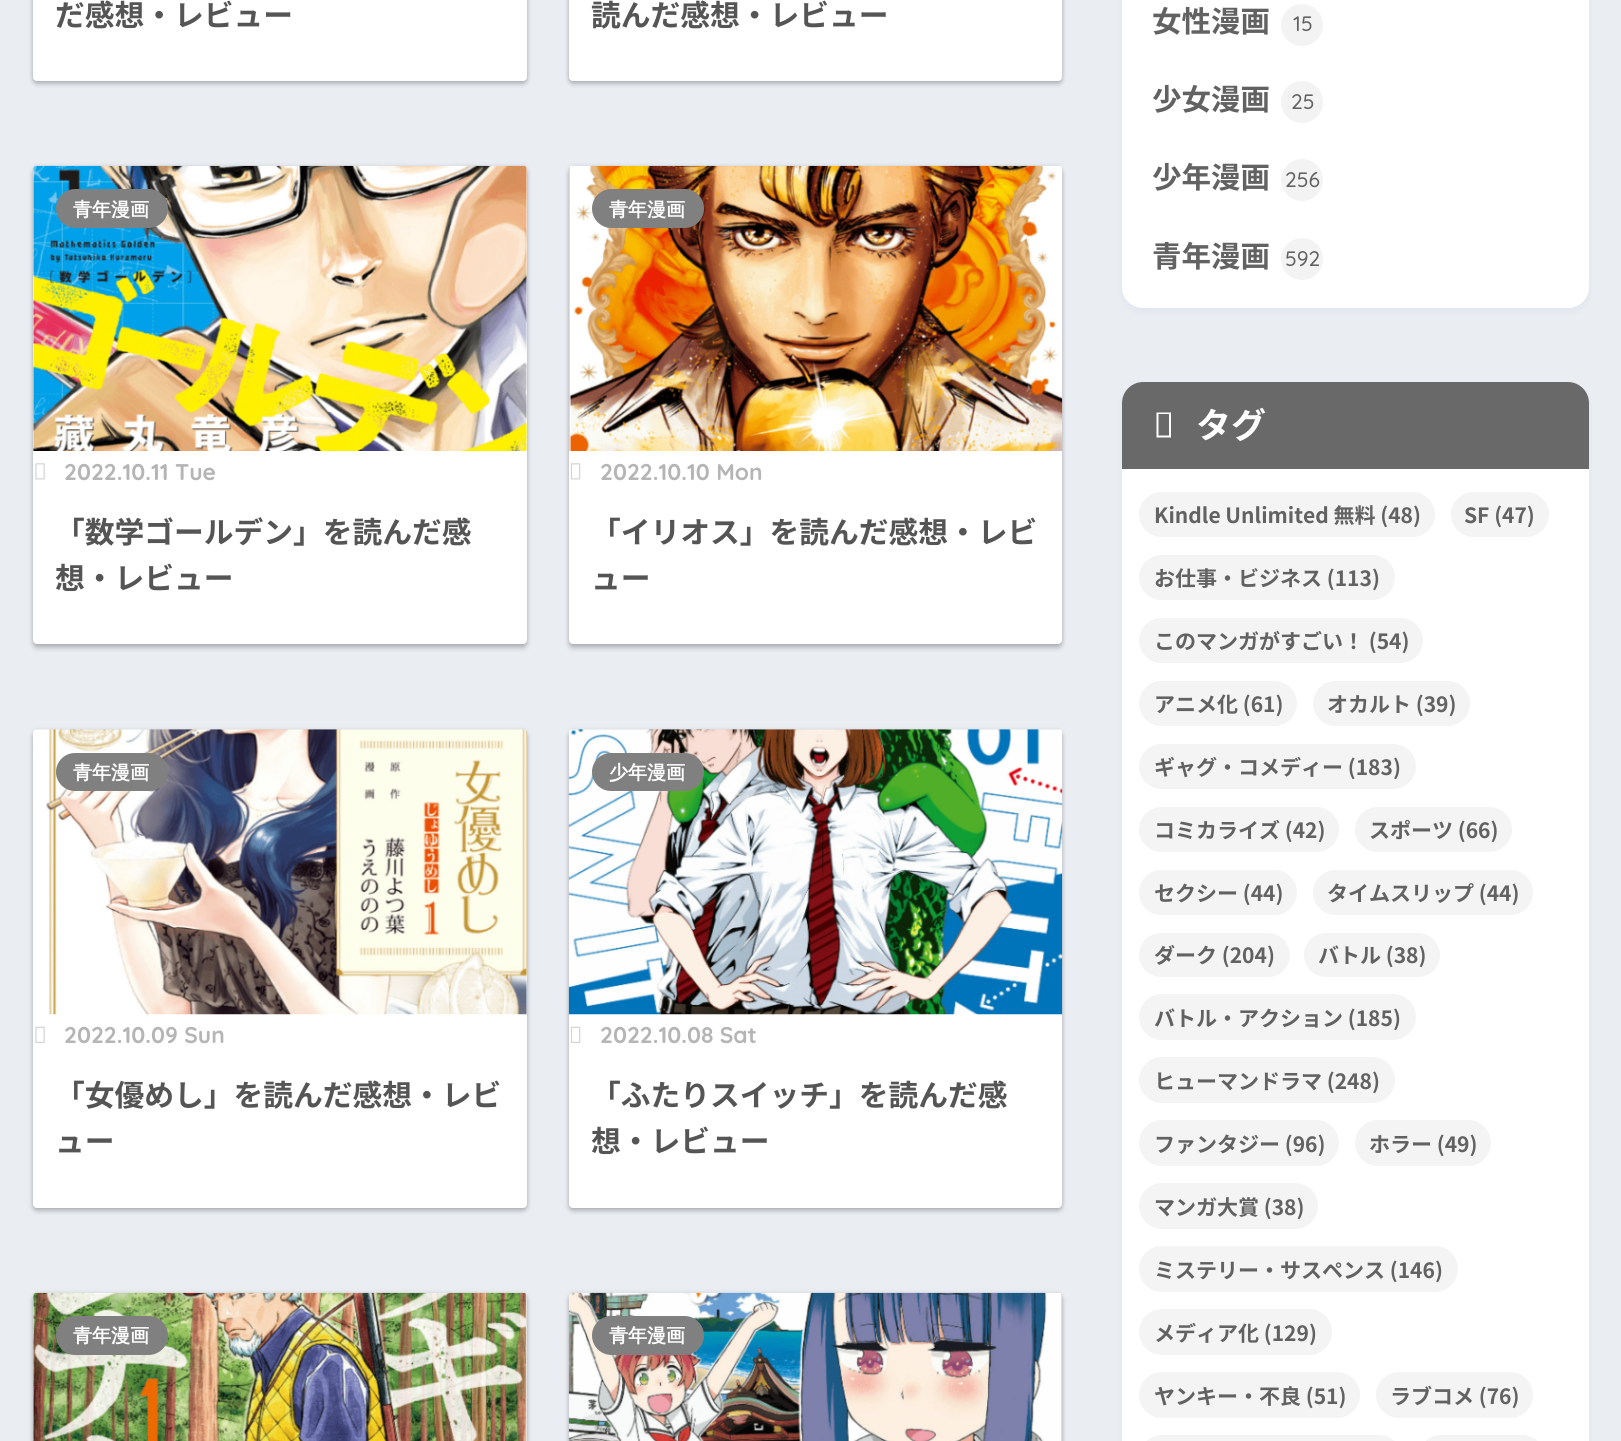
#include <cairo/cairo.h>
#include <math.h>
#include <stddef.h>

typedef struct { double x, y; const char *s; } line_t;
static cairo_t *cr;

static void rgb(unsigned color)
{
	cairo_set_source_rgb(cr, (color >> 16) / 255.0, (color >> 8 & 255) / 255.0, (color & 255) / 255.0);
}

static void rrect(double x, double y, double w, double h, double r)
{
	cairo_new_sub_path(cr);
	cairo_arc(cr, x + w - r, y + h - r, r, 0, M_PI / 2);
	cairo_arc(cr, x + r, y + h - r, r, M_PI / 2, M_PI);
	cairo_arc(cr, x + r, y + r, r, M_PI, 1.5 * M_PI);
	cairo_arc(cr, x + w - r, y + r, r, 1.5 * M_PI, 2 * M_PI);
	cairo_close_path(cr);
}

static void soft_shadow(double x, double y, double w, double h, double r, double blur, double alpha)
{
	cairo_push_group_with_content(cr, CAIRO_CONTENT_ALPHA);
	cairo_set_operator(cr, CAIRO_OPERATOR_SOURCE);
	for (int i = 15; i >= -15 && fmin(w, h) + blur * i / 3 > 0; i -= 2) {
		double e = blur * i / 6;
		cairo_set_source_rgba(cr, 0, 0, 0, alpha * erfc((i - 1) / 8.5) / 2);
		rrect(x - e, y - e, w + 2 * e, h + 2 * e, fmax(0, fmin(r + e + blur * .6, fmin(w, h) / 2 + e)));
		cairo_fill(cr);
	}
	cairo_pattern_t *soft = cairo_pop_group(cr);
	cairo_mask(cr, soft);
	cairo_pattern_destroy(soft);
}

static void image(const char *path, double x, double y, double w, double h)
{
	cairo_surface_t *image = cairo_image_surface_create_from_png(path);
	cairo_save(cr);
	cairo_set_source_surface(cr, image, x, y);
	cairo_rectangle(cr, x, y, w, h);
	cairo_fill(cr);
	cairo_restore(cr);
	cairo_surface_destroy(image);
}

int main(void) {
	cairo_surface_t *surface = cairo_image_surface_create(CAIRO_FORMAT_RGB24, 1621, 1441);
	cr = cairo_create(surface);
	cairo_font_options_t *options = cairo_font_options_create();
	cairo_font_options_set_hint_metrics(options, CAIRO_HINT_METRICS_OFF);
	cairo_font_options_set_hint_style(options, CAIRO_HINT_STYLE_NONE);
	cairo_set_font_options(cr, options);
	cairo_set_miter_limit(cr, 4);
	rgb(0xeaedf2);
	cairo_paint(cr);
	rgb(0x000000);
	soft_shadow(33, -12, 494, 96, 4, 2.5, 0.22);
	soft_shadow(33, -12, 494, 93, 4, 2.5, 0.12);
	rgb(0xffffff);
	rrect(33, -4, 494, 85, 4);
	cairo_fill(cr);
	rgb(0x000000);
	soft_shadow(569, -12, 493, 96, 4, 2.5, 0.22);
	soft_shadow(569, -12, 493, 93, 4, 2.5, 0.12);
	rgb(0xffffff);
	rrect(569, -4, 493, 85, 4);
	cairo_fill(cr);
	rgb(0x000000);
	soft_shadow(33, 170, 494, 478, 4, 2.5, 0.22);
	soft_shadow(33, 166, 494, 478, 4, 2.5, 0.12);
	rgb(0xffffff);
	rrect(33, 166, 494, 478, 4);
	cairo_fill(cr);
	image("img/1.png", 33, 165, 494, 286);
	rgb(0x808080);
	rrect(56, 189, 112, 39, 19.5);
	cairo_fill(cr);
	image("img/2.png", 35, 463, 10, 17);
	rgb(0x000000);
	soft_shadow(569, 170, 493, 478, 4, 2.5, 0.22);
	soft_shadow(569, 166, 493, 478, 4, 2.5, 0.12);
	rgb(0xffffff);
	rrect(569, 166, 493, 478, 4);
	cairo_fill(cr);
	image("img/3.png", 569, 165, 494, 286);
	rgb(0x808080);
	rrect(592, 189, 112, 39, 19.5);
	cairo_fill(cr);
	image("img/4.png", 570, 463, 11, 17);
	rgb(0x000000);
	soft_shadow(33, 733, 494, 478, 4, 2.5, 0.22);
	soft_shadow(33, 730, 494, 478, 4, 2.5, 0.12);
	rgb(0xffffff);
	rrect(33, 730, 494, 478, 4);
	cairo_fill(cr);
	image("img/5.png", 33, 729, 494, 286);
	rgb(0x808080);
	rrect(56, 753, 112, 38, 19);
	cairo_fill(cr);
	image("img/6.png", 35, 1026, 10, 17);
	rgb(0x000000);
	soft_shadow(569, 733, 493, 478, 4, 2.5, 0.22);
	soft_shadow(569, 730, 493, 478, 4, 2.5, 0.12);
	rgb(0xffffff);
	rrect(569, 730, 493, 478, 4);
	cairo_fill(cr);
	image("img/7.png", 568, 729, 495, 286);
	rgb(0x808080);
	rrect(592, 753, 112, 38, 19);
	cairo_fill(cr);
	image("img/8.png", 570, 1026, 11, 17);
	rgb(0x000000);
	soft_shadow(33, 1297, 494, 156, 4, 2.5, 0.22);
	soft_shadow(33, 1293, 494, 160, 4, 2.5, 0.12);
	rgb(0xffffff);
	rrect(33, 1293, 494, 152, 4);
	cairo_fill(cr);
	image("img/9.png", 33, 1292, 494, 149);
	rgb(0x808080);
	rrect(56, 1316, 112, 39, 19.5);
	cairo_fill(cr);
	rgb(0x000000);
	soft_shadow(569, 1297, 493, 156, 4, 2.5, 0.22);
	soft_shadow(569, 1293, 493, 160, 4, 2.5, 0.12);
	image("img/10.png", 568, 1292, 494, 149);
	rgb(0x808080);
	rrect(592, 1316, 112, 39, 19.5);
	cairo_fill(cr);
	rgb(0x4385bb);
	soft_shadow(1122, -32, 467, 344, 21, 3.5, 0.07);
	rgb(0xffffff);
	rrect(1122, -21, 467, 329, 21);
	cairo_fill(cr);
	rgb(0xf3f3f3);
	cairo_arc(cr, 1302, 25, 21, 0, 2 * M_PI);
	cairo_fill(cr);
	cairo_arc(cr, 1302, 102, 21, 0, 2 * M_PI);
	cairo_fill(cr);
	cairo_arc(cr, 1302, 180, 21, 0, 2 * M_PI);
	cairo_fill(cr);
	cairo_arc(cr, 1302, 259, 21, 0, 2 * M_PI);
	cairo_fill(cr);
	rgb(0x4385bb);
	soft_shadow(1122, 385, 467, 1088, 21, 3.5, 0.07);
	rgb(0xffffff);
	rrect(1122, 382, 467, 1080, 21);
	cairo_fill(cr);
	rgb(0x696969);
	cairo_new_path(cr);
	cairo_move_to(cr, 1143, 382);
	cairo_line_to(cr, 1568, 382);
	cairo_curve_to(cr, 1579.5, 382, 1589, 391.5, 1589, 403);
	cairo_line_to(cr, 1589, 469);
	cairo_line_to(cr, 1122, 469);
	cairo_line_to(cr, 1122, 403);
	cairo_curve_to(cr, 1122, 391.5, 1131.5, 382, 1143, 382);
	cairo_close_path(cr);
	cairo_fill(cr);
	rgb(0xffffff);
	cairo_new_path(cr);
	cairo_move_to(cr, 1156.5, 437.5);
	cairo_line_to(cr, 1156.5, 412.5);
	cairo_line_to(cr, 1171, 412.5);
	cairo_line_to(cr, 1171, 437.5);
	cairo_close_path(cr);
	cairo_move_to(cr, 1158.5, 435.5);
	cairo_line_to(cr, 1169, 435.5);
	cairo_line_to(cr, 1169, 414);
	cairo_line_to(cr, 1158.5, 414);
	cairo_close_path(cr);
	cairo_fill(cr);
	rgb(0xf4f4f4);
	rrect(1139, 492, 296, 45, 22.5);
	cairo_fill(cr);
	rrect(1451, 492, 98, 45, 22.5);
	cairo_fill(cr);
	rrect(1139, 555, 256, 45, 22.5);
	cairo_fill(cr);
	rrect(1139, 618, 284, 45, 22.5);
	cairo_fill(cr);
	rrect(1139, 681, 158, 45, 22.5);
	cairo_fill(cr);
	rrect(1313, 681, 157, 45, 22.5);
	cairo_fill(cr);
	rrect(1139, 744, 277, 45, 22.5);
	cairo_fill(cr);
	rrect(1139, 807, 200, 45, 22.5);
	cairo_fill(cr);
	rrect(1355, 807, 157, 45, 22.5);
	cairo_fill(cr);
	rrect(1139, 870, 158, 45, 22.5);
	cairo_fill(cr);
	rrect(1313, 870, 220, 45, 22.5);
	cairo_fill(cr);
	rrect(1139, 933, 151, 44, 22);
	cairo_fill(cr);
	rrect(1304, 933, 136, 44, 22);
	cairo_fill(cr);
	rrect(1139, 994, 277, 46, 23);
	cairo_fill(cr);
	rrect(1139, 1057, 256, 46, 23);
	cairo_fill(cr);
	rrect(1139, 1120, 200, 46, 23);
	cairo_fill(cr);
	rrect(1355, 1120, 136, 46, 23);
	cairo_fill(cr);
	rrect(1139, 1183, 179, 46, 23);
	cairo_fill(cr);
	rrect(1139, 1246, 319, 46, 23);
	cairo_fill(cr);
	rrect(1139, 1309, 193, 46, 23);
	cairo_fill(cr);
	rrect(1139, 1372, 221, 46, 23);
	cairo_fill(cr);
	rrect(1376, 1372, 157, 46, 23);
	cairo_fill(cr);
	rrect(1139, 1435, 263, 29, 23);
	cairo_fill(cr);
	rrect(1418, 1435, 127, 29, 23);
	cairo_fill(cr);
	cairo_select_font_face(cr, "Noto Sans JP", CAIRO_FONT_SLANT_NORMAL, CAIRO_FONT_WEIGHT_BOLD);
	cairo_set_font_size(cr, 29.75);
	rgb(0x555555);
	cairo_move_to(cr, 55, 26);
	cairo_show_text(cr, "だ感想・レビュー");
	cairo_move_to(cr, 591, 26);
	cairo_show_text(cr, "読んだ感想・レビュー");
	cairo_select_font_face(cr, "WenQuanYi Zen Hei", CAIRO_FONT_SLANT_NORMAL, CAIRO_FONT_WEIGHT_BOLD);
	cairo_set_font_size(cr, 19);
	rgb(0xffffff);
	cairo_move_to(cr, 73, 216);
	cairo_show_text(cr, "青年漫画");
	cairo_select_font_face(cr, "Quicksand", CAIRO_FONT_SLANT_NORMAL, CAIRO_FONT_WEIGHT_BOLD);
	cairo_set_font_size(cr, 22.75);
	rgb(0xb5b5b5);
	cairo_move_to(cr, 64, 480);
	cairo_show_text(cr, "2022.10.11 Tue");
	cairo_select_font_face(cr, "Noto Sans JP", CAIRO_FONT_SLANT_NORMAL, CAIRO_FONT_WEIGHT_BOLD);
	cairo_set_font_size(cr, 29.75);
	rgb(0x555555);
	cairo_move_to(cr, 55, 543);
	cairo_show_text(cr, "「数学ゴールデン」を読んだ感");
	cairo_move_to(cr, 55, 589);
	cairo_show_text(cr, "想・レビュー");
	cairo_select_font_face(cr, "WenQuanYi Zen Hei", CAIRO_FONT_SLANT_NORMAL, CAIRO_FONT_WEIGHT_BOLD);
	cairo_set_font_size(cr, 19);
	rgb(0xffffff);
	cairo_move_to(cr, 609, 216);
	cairo_show_text(cr, "青年漫画");
	cairo_select_font_face(cr, "Quicksand", CAIRO_FONT_SLANT_NORMAL, CAIRO_FONT_WEIGHT_BOLD);
	cairo_set_font_size(cr, 22.75);
	rgb(0xb5b5b5);
	cairo_move_to(cr, 600, 480);
	cairo_show_text(cr, "2022.10.10 Mon");
	cairo_select_font_face(cr, "Noto Sans JP", CAIRO_FONT_SLANT_NORMAL, CAIRO_FONT_WEIGHT_BOLD);
	cairo_set_font_size(cr, 29.75);
	rgb(0x555555);
	cairo_move_to(cr, 591, 543);
	cairo_show_text(cr, "「イリオス」を読んだ感想・レビ");
	cairo_move_to(cr, 591, 589);
	cairo_show_text(cr, "ュー");
	cairo_select_font_face(cr, "WenQuanYi Zen Hei", CAIRO_FONT_SLANT_NORMAL, CAIRO_FONT_WEIGHT_BOLD);
	cairo_set_font_size(cr, 19);
	rgb(0xffffff);
	cairo_move_to(cr, 73, 779);
	cairo_show_text(cr, "青年漫画");
	cairo_select_font_face(cr, "Quicksand", CAIRO_FONT_SLANT_NORMAL, CAIRO_FONT_WEIGHT_BOLD);
	cairo_set_font_size(cr, 22.75);
	rgb(0xb5b5b5);
	cairo_move_to(cr, 64, 1043);
	cairo_show_text(cr, "2022.10.09 Sun");
	cairo_select_font_face(cr, "Noto Sans JP", CAIRO_FONT_SLANT_NORMAL, CAIRO_FONT_WEIGHT_BOLD);
	cairo_set_font_size(cr, 29.75);
	rgb(0x555555);
	cairo_move_to(cr, 55, 1106);
	cairo_show_text(cr, "「女優めし」を読んだ感想・レビ");
	cairo_move_to(cr, 55, 1152);
	cairo_show_text(cr, "ュー");
	cairo_select_font_face(cr, "WenQuanYi Zen Hei", CAIRO_FONT_SLANT_NORMAL, CAIRO_FONT_WEIGHT_BOLD);
	cairo_set_font_size(cr, 19);
	rgb(0xffffff);
	cairo_move_to(cr, 609, 779);
	cairo_show_text(cr, "少年漫画");
	cairo_select_font_face(cr, "Quicksand", CAIRO_FONT_SLANT_NORMAL, CAIRO_FONT_WEIGHT_BOLD);
	cairo_set_font_size(cr, 22.75);
	rgb(0xb5b5b5);
	cairo_move_to(cr, 600, 1043);
	cairo_show_text(cr, "2022.10.08 Sat");
	cairo_select_font_face(cr, "Noto Sans JP", CAIRO_FONT_SLANT_NORMAL, CAIRO_FONT_WEIGHT_BOLD);
	cairo_set_font_size(cr, 29.75);
	rgb(0x555555);
	cairo_move_to(cr, 591, 1106);
	cairo_show_text(cr, "「ふたりスイッチ」を読んだ感");
	cairo_move_to(cr, 591, 1152);
	cairo_show_text(cr, "想・レビュー");
	cairo_select_font_face(cr, "WenQuanYi Zen Hei", CAIRO_FONT_SLANT_NORMAL, CAIRO_FONT_WEIGHT_BOLD);
	cairo_set_font_size(cr, 19);
	rgb(0xffffff);
	cairo_move_to(cr, 73, 1342);
	cairo_show_text(cr, "青年漫画");
	cairo_move_to(cr, 609, 1342);
	cairo_show_text(cr, "青年漫画");
	cairo_select_font_face(cr, "Noto Sans JP", CAIRO_FONT_SLANT_NORMAL, CAIRO_FONT_WEIGHT_BOLD);
	cairo_set_font_size(cr, 29.5);
	rgb(0x626262);
	cairo_move_to(cr, 1152, 32);
	cairo_show_text(cr, "女性漫画");
	cairo_select_font_face(cr, "Quicksand Medium", CAIRO_FONT_SLANT_NORMAL, CAIRO_FONT_WEIGHT_NORMAL);
	cairo_set_font_size(cr, 21);
	cairo_move_to(cr, 1293, 31);
	cairo_show_text(cr, "15");
	cairo_select_font_face(cr, "Noto Sans JP", CAIRO_FONT_SLANT_NORMAL, CAIRO_FONT_WEIGHT_BOLD);
	cairo_set_font_size(cr, 29.5);
	cairo_move_to(cr, 1152, 110);
	cairo_show_text(cr, "少女漫画");
	cairo_select_font_face(cr, "Quicksand Medium", CAIRO_FONT_SLANT_NORMAL, CAIRO_FONT_WEIGHT_NORMAL);
	cairo_set_font_size(cr, 21);
	cairo_move_to(cr, 1291, 109);
	cairo_show_text(cr, "25");
	cairo_select_font_face(cr, "Noto Sans JP", CAIRO_FONT_SLANT_NORMAL, CAIRO_FONT_WEIGHT_BOLD);
	cairo_set_font_size(cr, 29.5);
	cairo_move_to(cr, 1152, 188);
	cairo_show_text(cr, "少年漫画");
	cairo_select_font_face(cr, "Quicksand Medium", CAIRO_FONT_SLANT_NORMAL, CAIRO_FONT_WEIGHT_NORMAL);
	cairo_set_font_size(cr, 21);
	cairo_move_to(cr, 1285, 187);
	cairo_show_text(cr, "256");
	cairo_select_font_face(cr, "Noto Sans JP", CAIRO_FONT_SLANT_NORMAL, CAIRO_FONT_WEIGHT_BOLD);
	cairo_set_font_size(cr, 29.5);
	cairo_move_to(cr, 1152, 267);
	cairo_show_text(cr, "青年漫画");
	cairo_select_font_face(cr, "Quicksand Medium", CAIRO_FONT_SLANT_NORMAL, CAIRO_FONT_WEIGHT_NORMAL);
	cairo_set_font_size(cr, 21);
	cairo_move_to(cr, 1285, 266);
	cairo_show_text(cr, "592");
	cairo_select_font_face(cr, "Noto Sans JP", CAIRO_FONT_SLANT_NORMAL, CAIRO_FONT_WEIGHT_BOLD);
	cairo_set_font_size(cr, 35);
	rgb(0xffffff);
	cairo_move_to(cr, 1196, 438);
	cairo_show_text(cr, "タグ");
	cairo_set_font_size(cr, 21);
	rgb(0x626262);
	{
		static const line_t items[] = {
			{1154, 523, "Kindle Unlimited 無料 (48)"},
			{1464, 523, "SF (47)"},
			{1154, 586, "お仕事・ビジネス (113)"},
			{1154, 649, "このマンガがすごい！ (54)"},
			{1154, 712, "アニメ化 (61)"},
			{1327, 712, "オカルト (39)"},
			{1154, 775, "ギャグ・コメディー (183)"},
			{1154, 838, "コミカライズ (42)"},
			{1369, 838, "スポーツ (66)"},
			{1154, 901, "セクシー (44)"},
			{1327, 901, "タイムスリップ (44)"},
			{1154, 963, "ダーク (204)"},
			{1318, 963, "バトル (38)"},
			{1154, 1026, "バトル・アクション (185)"},
			{1154, 1089, "ヒューマンドラマ (248)"},
			{1154, 1152, "ファンタジー (96)"},
			{1369, 1152, "ホラー (49)"},
			{1154, 1215, "マンガ大賞 (38)"},
			{1154, 1278, "ミステリー・サスペンス (146)"},
			{1154, 1341, "メディア化 (129)"},
			{1154, 1404, "ヤンキー・不良 (51)"},
			{1390, 1404, "ラブコメ (76)"},
		};
		for (size_t i = 0; i < sizeof items / sizeof *items; i++) {
			cairo_move_to(cr, items[i].x, items[i].y);
			cairo_show_text(cr, items[i].s);
		}
	}
	cairo_surface_write_to_png(surface, "page.png");
	cairo_font_options_destroy(options);
	cairo_destroy(cr);
	cairo_surface_destroy(surface);
	return 0;
}
